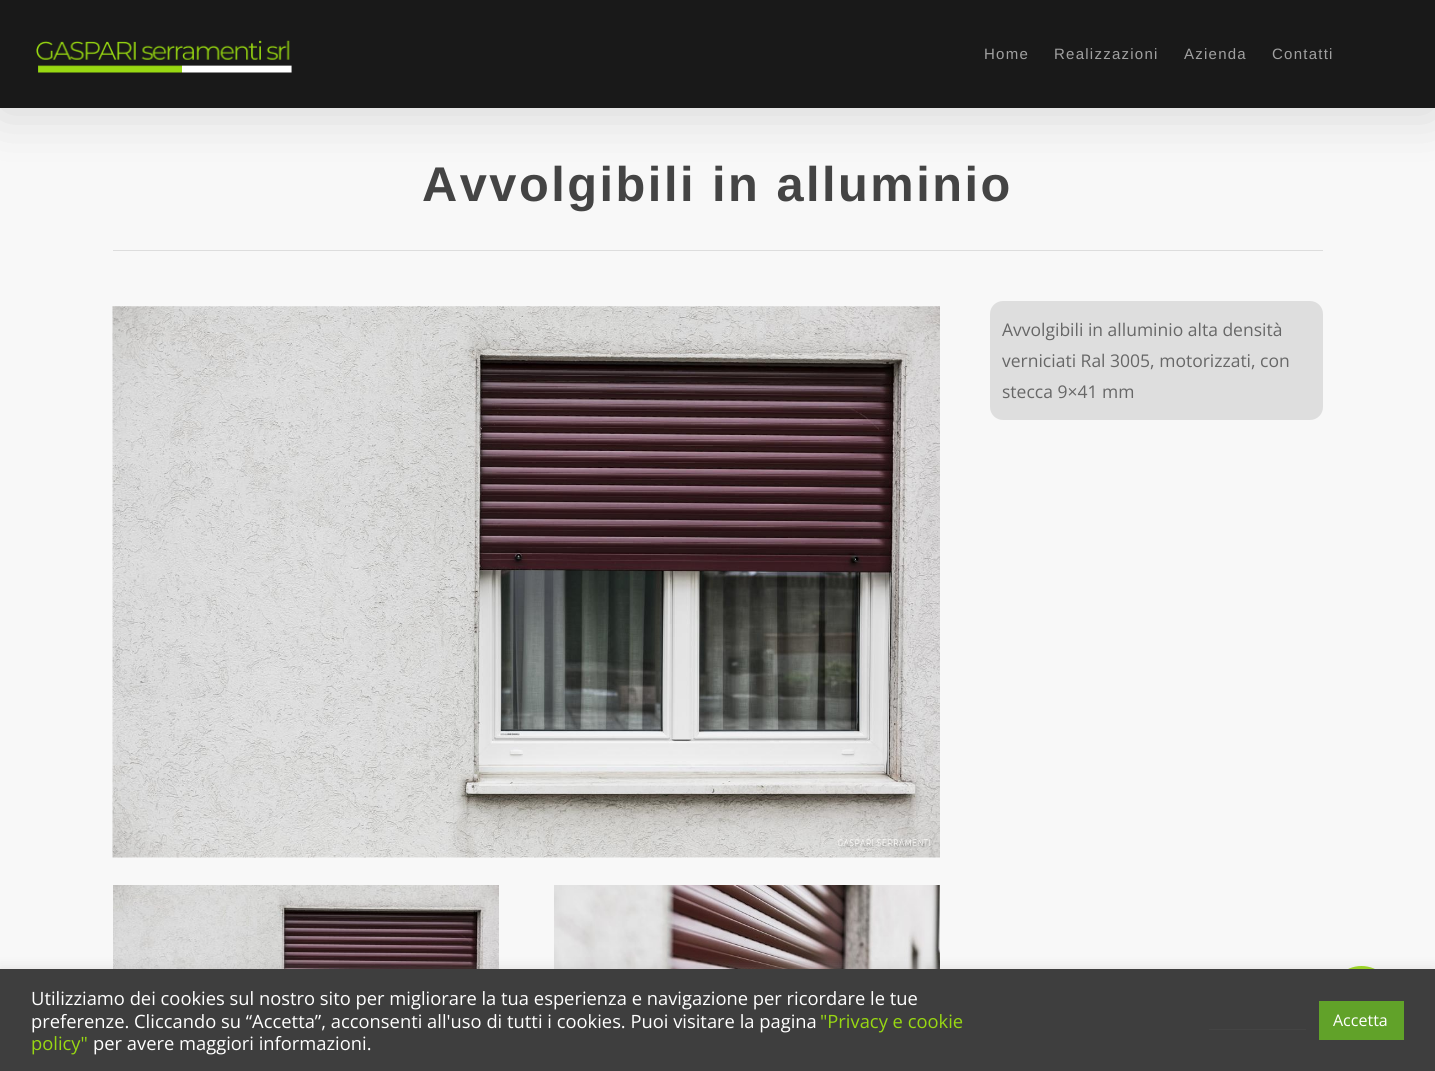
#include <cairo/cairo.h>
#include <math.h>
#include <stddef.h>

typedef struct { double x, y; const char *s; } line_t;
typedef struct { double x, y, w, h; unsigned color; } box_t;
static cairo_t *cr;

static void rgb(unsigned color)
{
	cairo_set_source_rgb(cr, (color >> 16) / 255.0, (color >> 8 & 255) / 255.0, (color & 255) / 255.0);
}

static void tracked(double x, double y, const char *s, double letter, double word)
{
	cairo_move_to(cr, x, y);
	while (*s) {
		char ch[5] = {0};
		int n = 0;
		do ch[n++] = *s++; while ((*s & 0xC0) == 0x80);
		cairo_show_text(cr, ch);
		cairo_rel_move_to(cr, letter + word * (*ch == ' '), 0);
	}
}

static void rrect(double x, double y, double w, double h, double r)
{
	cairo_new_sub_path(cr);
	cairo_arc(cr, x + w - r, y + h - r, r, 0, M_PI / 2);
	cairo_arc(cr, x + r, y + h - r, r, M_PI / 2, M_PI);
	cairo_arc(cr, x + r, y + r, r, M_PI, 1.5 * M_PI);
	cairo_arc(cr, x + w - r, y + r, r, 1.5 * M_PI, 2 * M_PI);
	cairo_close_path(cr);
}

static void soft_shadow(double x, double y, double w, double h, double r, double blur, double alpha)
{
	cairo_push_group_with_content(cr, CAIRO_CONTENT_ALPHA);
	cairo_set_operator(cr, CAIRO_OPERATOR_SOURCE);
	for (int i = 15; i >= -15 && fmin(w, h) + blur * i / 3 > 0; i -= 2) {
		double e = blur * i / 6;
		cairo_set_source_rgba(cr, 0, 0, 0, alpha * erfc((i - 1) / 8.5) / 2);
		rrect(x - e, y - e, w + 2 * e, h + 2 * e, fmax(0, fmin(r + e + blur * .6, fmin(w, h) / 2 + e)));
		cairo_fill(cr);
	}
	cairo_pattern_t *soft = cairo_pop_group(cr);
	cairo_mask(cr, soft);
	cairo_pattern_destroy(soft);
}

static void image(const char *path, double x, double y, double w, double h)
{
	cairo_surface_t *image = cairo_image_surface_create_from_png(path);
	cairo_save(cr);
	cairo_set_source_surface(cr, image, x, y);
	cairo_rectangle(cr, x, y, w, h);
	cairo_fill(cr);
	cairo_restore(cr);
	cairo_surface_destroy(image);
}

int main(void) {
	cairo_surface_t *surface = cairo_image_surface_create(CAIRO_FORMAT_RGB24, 1435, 1071);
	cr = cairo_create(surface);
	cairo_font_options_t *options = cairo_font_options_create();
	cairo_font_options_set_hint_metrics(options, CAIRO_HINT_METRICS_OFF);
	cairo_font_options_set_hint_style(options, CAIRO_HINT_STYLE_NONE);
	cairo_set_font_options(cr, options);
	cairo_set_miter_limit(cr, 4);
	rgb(0xffffff);
	cairo_paint(cr);
	rgb(0xf8f8f8);
	cairo_rectangle(cr, 0, 108, 1435, 861);
	cairo_fill(cr);
	cairo_save(cr);
	cairo_set_fill_rule(cr, CAIRO_FILL_RULE_EVEN_ODD);
	cairo_new_path(cr);
	cairo_move_to(cr, 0, 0);
	cairo_line_to(cr, 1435, 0);
	cairo_line_to(cr, 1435, 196);
	cairo_line_to(cr, 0, 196);
	cairo_close_path(cr);
	cairo_move_to(cr, 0, 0);
	cairo_line_to(cr, 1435, 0);
	cairo_line_to(cr, 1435, 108);
	cairo_line_to(cr, 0, 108);
	cairo_close_path(cr);
	cairo_clip(cr);
	rgb(0x000000);
	soft_shadow(0, 4, 1435, 107, 0, 28, 0.15);
	cairo_restore(cr);
	cairo_set_source_rgba(cr, 0, 0, 0, 0.9);
	cairo_rectangle(cr, 0, 0, 1435, 108);
	cairo_fill(cr);
	image("img/1.png", 36, 40, 256, 33);
	rgb(0xdddddd);
	cairo_rectangle(cr, 113, 250, 1210, 1);
	cairo_fill(cr);
	image("img/2.png", 112, 306, 828, 552);
	image("img/3.png", 113, 885, 386, 84);
	image("img/4.png", 554, 885, 386, 84);
	rgb(0xdedede);
	rrect(990, 301, 333, 119, 13);
	cairo_fill(cr);
	rgb(0x98d812);
	cairo_arc(cr, 1361.5, 997.5, 31.5, 0, 2 * M_PI);
	cairo_fill(cr);
	rgb(0xacabab);
	soft_shadow(0, 968, 1435, 102, 0, 6, 0.3);
	{
		static const box_t items[] = {
			{0, 969, 1435, 102, 0x3e3e3e},
			{1319, 1001, 85, 39, 0x61a229},
			{1209, 1029, 97, 1, 0x444444},
		};
		for (size_t i = 0; i < sizeof items / sizeof *items; i++) {
			rgb(items[i].color);
			cairo_rectangle(cr, items[i].x, items[i].y, items[i].w, items[i].h);
			cairo_fill(cr);
		}
	}
	cairo_select_font_face(cr, "Liberation Sans", CAIRO_FONT_SLANT_NORMAL, CAIRO_FONT_WEIGHT_NORMAL);
	cairo_set_font_size(cr, 15);
	rgb(0xa0a0a0);
	{
		static const line_t items[] = {
			{984, 59, "Home"},
			{1054, 59, "Realizzazioni"},
			{1184, 59, "Azienda"},
			{1272, 59, "Contatti"},
		};
		for (size_t i = 0; i < sizeof items / sizeof *items; i++) {
			tracked(items[i].x, items[i].y, items[i].s, 1.25, 0);
		}
	}
	cairo_select_font_face(cr, "Liberation Sans", CAIRO_FONT_SLANT_NORMAL, CAIRO_FONT_WEIGHT_BOLD);
	cairo_set_font_size(cr, 48.75);
	rgb(0x444444);
	tracked(422, 201, "Avvolgibili in alluminio", 2.5, 0);
	cairo_select_font_face(cr, "Open Sans", CAIRO_FONT_SLANT_NORMAL, CAIRO_FONT_WEIGHT_NORMAL);
	cairo_set_font_size(cr, 17.5);
	rgb(0x676767);
	{
		static const line_t items[] = {
			{1002, 336, "Avvolgibili in alluminio alta densità"},
			{1002, 367, "verniciati Ral 3005, motorizzati, con"},
			{1002, 398, "stecca 9×41 mm"},
		};
		for (size_t i = 0; i < sizeof items / sizeof *items; i++) {
			cairo_move_to(cr, items[i].x, items[i].y);
			cairo_show_text(cr, items[i].s);
		}
	}
	cairo_set_font_size(cr, 18.35);
	rgb(0xffffff);
	cairo_move_to(cr, 31, 1005);
	cairo_show_text(cr, "Utilizziamo dei cookies sul nostro sito per migliorare la tua esperienza e navigazione per ricordare le tue");
	cairo_move_to(cr, 31, 1028);
	cairo_show_text(cr, "preferenze. Cliccando su “Accetta”, acconsenti all'uso di tutti i cookies. Puoi visitare la pagina");
	rgb(0x98d812);
	cairo_move_to(cr, 820, 1028);
	cairo_show_text(cr, "\"Privacy e cookie");
	cairo_move_to(cr, 31, 1050);
	cairo_show_text(cr, "policy\"");
	rgb(0xffffff);
	cairo_move_to(cr, 93, 1050);
	cairo_show_text(cr, "per avere maggiori informazioni.");
	cairo_set_font_size(cr, 16);
	cairo_move_to(cr, 1333, 1026);
	cairo_show_text(cr, "Accetta");
	cairo_surface_write_to_png(surface, "page.png");
	cairo_font_options_destroy(options);
	cairo_destroy(cr);
	cairo_surface_destroy(surface);
	return 0;
}
